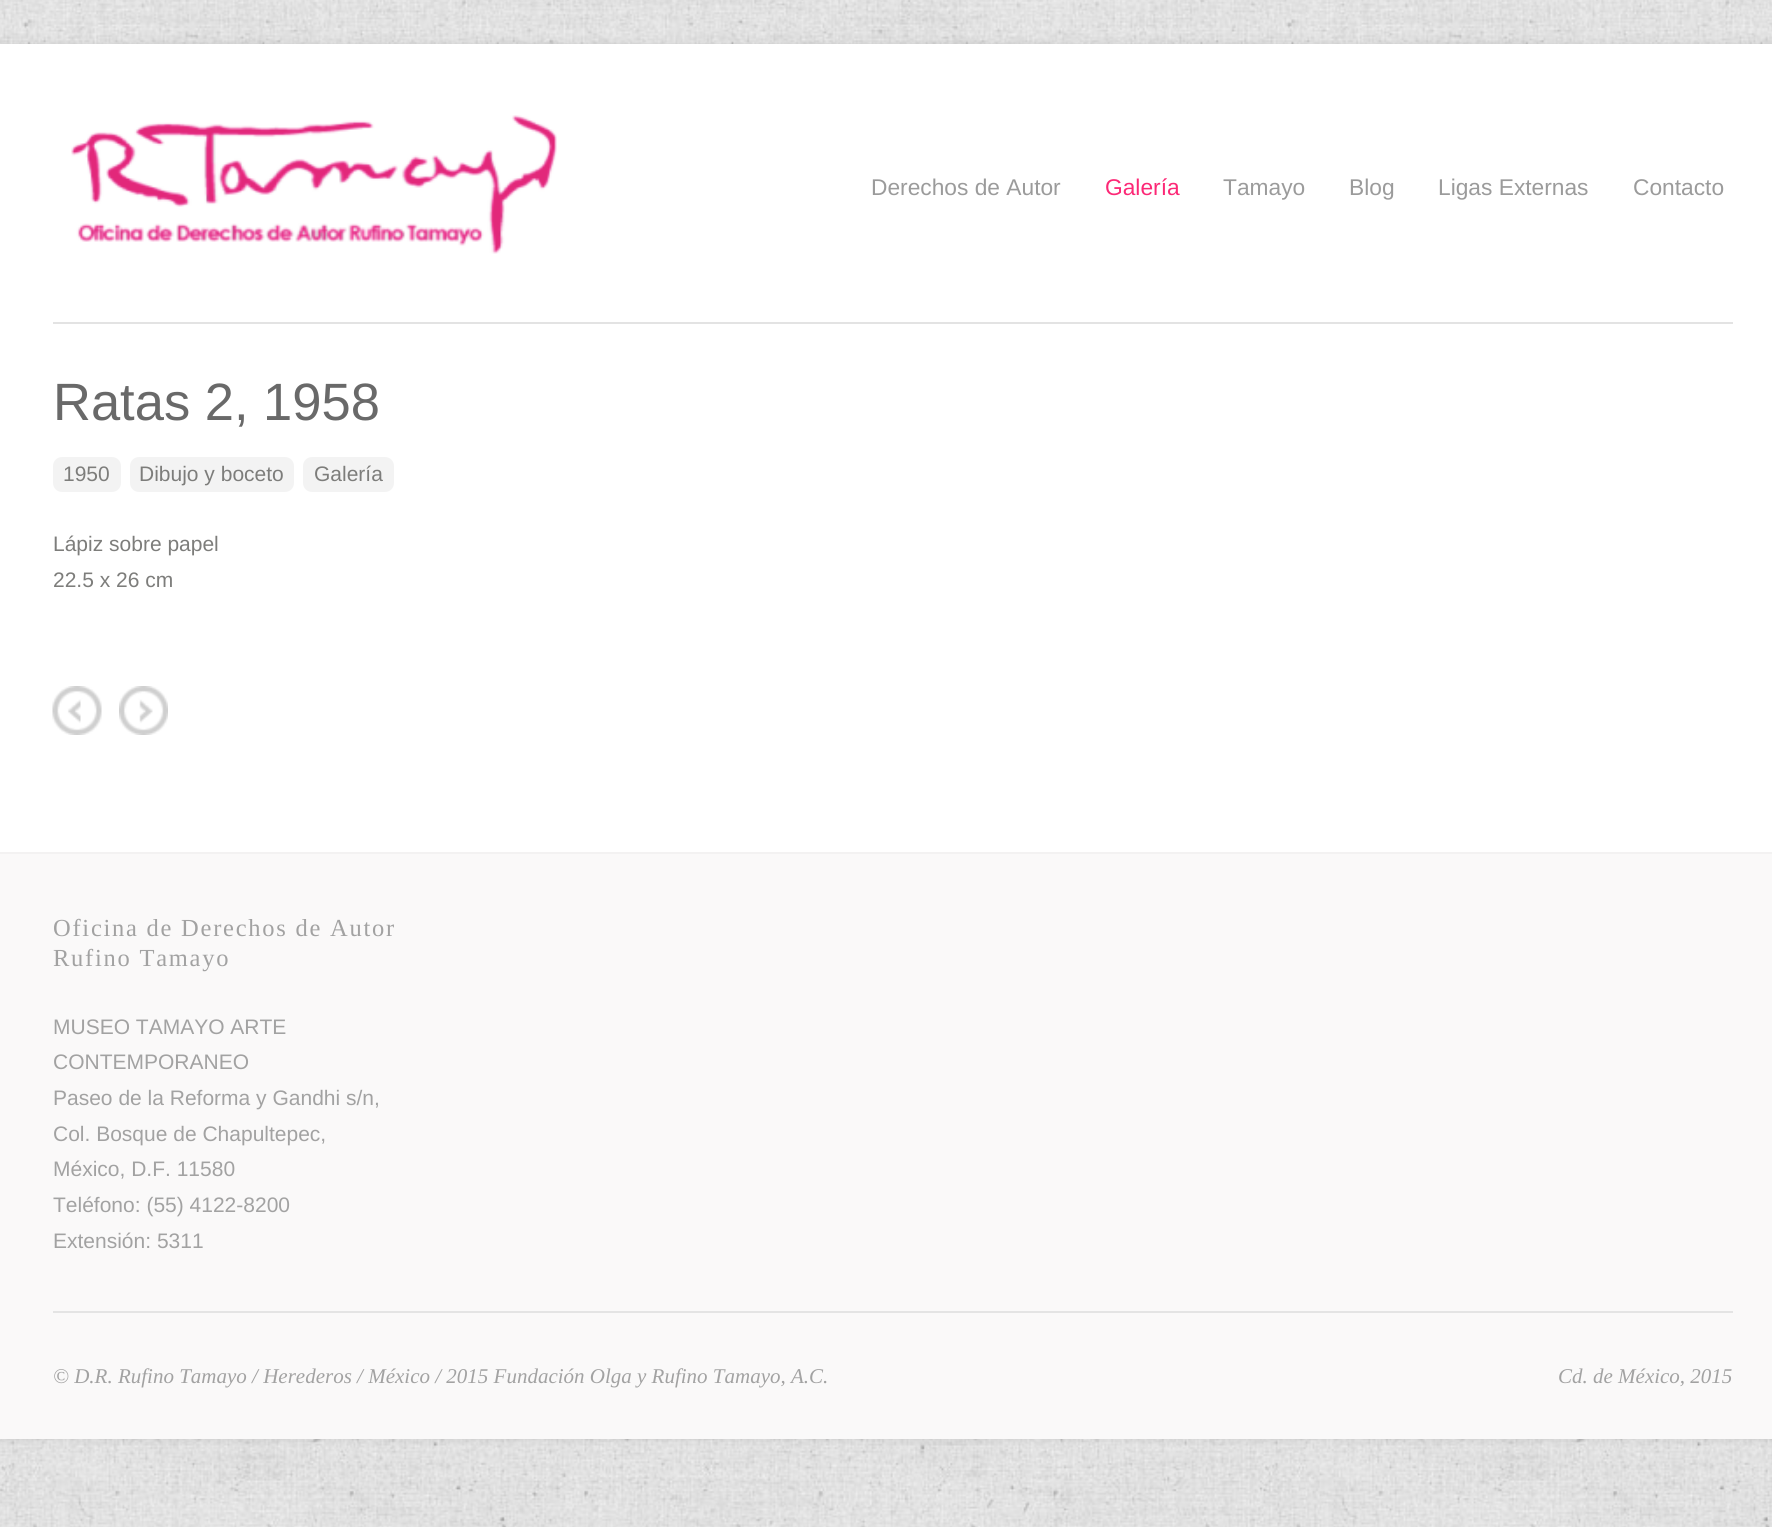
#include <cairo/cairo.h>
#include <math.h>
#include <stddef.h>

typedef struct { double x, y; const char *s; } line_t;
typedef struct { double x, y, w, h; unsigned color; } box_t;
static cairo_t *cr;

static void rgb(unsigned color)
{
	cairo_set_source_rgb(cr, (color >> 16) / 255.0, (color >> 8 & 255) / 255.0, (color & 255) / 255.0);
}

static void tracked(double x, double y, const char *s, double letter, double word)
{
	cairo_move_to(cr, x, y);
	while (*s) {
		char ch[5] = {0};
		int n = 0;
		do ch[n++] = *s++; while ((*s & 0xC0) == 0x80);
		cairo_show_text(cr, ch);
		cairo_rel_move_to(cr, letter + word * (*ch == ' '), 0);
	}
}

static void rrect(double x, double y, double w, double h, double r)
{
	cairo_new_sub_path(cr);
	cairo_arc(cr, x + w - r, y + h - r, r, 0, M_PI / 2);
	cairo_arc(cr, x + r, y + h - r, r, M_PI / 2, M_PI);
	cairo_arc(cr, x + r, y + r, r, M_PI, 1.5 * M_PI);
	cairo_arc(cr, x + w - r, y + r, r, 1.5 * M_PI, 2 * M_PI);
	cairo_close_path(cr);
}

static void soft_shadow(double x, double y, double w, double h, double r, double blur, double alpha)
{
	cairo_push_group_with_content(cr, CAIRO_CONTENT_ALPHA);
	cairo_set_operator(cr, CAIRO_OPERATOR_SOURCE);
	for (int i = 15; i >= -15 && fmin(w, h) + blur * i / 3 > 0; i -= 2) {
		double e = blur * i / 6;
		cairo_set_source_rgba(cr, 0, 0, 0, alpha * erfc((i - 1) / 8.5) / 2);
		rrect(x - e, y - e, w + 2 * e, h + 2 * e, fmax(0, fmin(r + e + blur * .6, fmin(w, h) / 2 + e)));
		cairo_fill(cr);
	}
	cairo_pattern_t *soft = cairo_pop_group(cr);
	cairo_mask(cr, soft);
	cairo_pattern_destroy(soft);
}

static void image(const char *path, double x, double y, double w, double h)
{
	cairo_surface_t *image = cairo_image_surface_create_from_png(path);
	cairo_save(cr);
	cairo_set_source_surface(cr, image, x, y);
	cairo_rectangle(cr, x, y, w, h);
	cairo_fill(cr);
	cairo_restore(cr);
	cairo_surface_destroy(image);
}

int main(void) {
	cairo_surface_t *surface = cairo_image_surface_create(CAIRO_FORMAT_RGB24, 1772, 1527);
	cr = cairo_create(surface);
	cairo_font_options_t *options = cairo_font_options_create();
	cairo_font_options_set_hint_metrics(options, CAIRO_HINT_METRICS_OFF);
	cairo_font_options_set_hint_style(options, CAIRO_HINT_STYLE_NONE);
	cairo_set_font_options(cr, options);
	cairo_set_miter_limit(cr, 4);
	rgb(0xffffff);
	cairo_paint(cr);
	image("img/1.png", 0, 0, 1772, 1527);
	rgb(0x000000);
	soft_shadow(0, 44, 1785, 1395, 0, 5, 0.1);
	rgb(0xffffff);
	cairo_rectangle(cr, 0, 44, 1772, 808);
	cairo_fill(cr);
	rgb(0xe3e3e3);
	cairo_rectangle(cr, 53, 322, 1680, 2);
	cairo_fill(cr);
	image("img/2.png", 71, 115, 486, 139);
	rgb(0xf3f3f3);
	rrect(53, 457, 68, 35, 9);
	cairo_fill(cr);
	rrect(130, 457, 164, 35, 9);
	cairo_fill(cr);
	rrect(303, 457, 91, 35, 9);
	cairo_fill(cr);
	image("img/3.png", 52, 686, 50, 49);
	image("img/4.png", 119, 686, 49, 49);
	{
		static const box_t items[] = {
			{0, 854, 1772, 585, 0xfaf9f9},
			{0, 852, 1772, 2, 0xf3f2f2},
			{53, 1311, 1680, 2, 0xe4e4e4},
		};
		for (size_t i = 0; i < sizeof items / sizeof *items; i++) {
			rgb(items[i].color);
			cairo_rectangle(cr, items[i].x, items[i].y, items[i].w, items[i].h);
			cairo_fill(cr);
		}
	}
	cairo_select_font_face(cr, "Liberation Sans", CAIRO_FONT_SLANT_NORMAL, CAIRO_FONT_WEIGHT_NORMAL);
	cairo_set_font_size(cr, 22.75);
	rgb(0x9b9b9b);
	cairo_move_to(cr, 871, 195);
	cairo_show_text(cr, "Derechos de Autor");
	rgb(0xfc2876);
	cairo_move_to(cr, 1105, 195);
	cairo_show_text(cr, "Galería");
	rgb(0x9b9b9b);
	{
		static const line_t items[] = {
			{1223, 195, "Tamayo"},
			{1349, 195, "Blog"},
			{1438, 195, "Ligas Externas"},
			{1633, 195, "Contacto"},
		};
		for (size_t i = 0; i < sizeof items / sizeof *items; i++) {
			cairo_move_to(cr, items[i].x, items[i].y);
			cairo_show_text(cr, items[i].s);
		}
	}
	cairo_set_font_size(cr, 52.5);
	rgb(0x696969);
	cairo_move_to(cr, 53, 420);
	cairo_show_text(cr, "Ratas 2, 1958");
	cairo_set_font_size(cr, 21);
	rgb(0x7d7d7b);
	{
		static const line_t items[] = {
			{63, 481, "1950"},
			{139, 481, "Dibujo y boceto"},
			{314, 481, "Galería"},
			{53, 551, "Lápiz sobre papel"},
			{53, 587, "22.5 x 26 cm"},
		};
		for (size_t i = 0; i < sizeof items / sizeof *items; i++) {
			cairo_move_to(cr, items[i].x, items[i].y);
			cairo_show_text(cr, items[i].s);
		}
	}
	cairo_select_font_face(cr, "Liberation Serif", CAIRO_FONT_SLANT_NORMAL, CAIRO_FONT_WEIGHT_NORMAL);
	cairo_set_font_size(cr, 24.5);
	rgb(0xa2a2a2);
	tracked(53, 936, "Oficina de Derechos de Autor", 1.75, 0);
	tracked(53, 966, "Rufino Tamayo", 1.75, 0);
	cairo_select_font_face(cr, "Liberation Sans", CAIRO_FONT_SLANT_NORMAL, CAIRO_FONT_WEIGHT_NORMAL);
	cairo_set_font_size(cr, 21);
	{
		static const line_t items[] = {
			{53, 1034, "MUSEO TAMAYO ARTE"},
			{53, 1069, "CONTEMPORANEO"},
			{53, 1105, "Paseo de la Reforma y Gandhi s/n,"},
			{53, 1141, "Col. Bosque de Chapultepec,"},
			{53, 1176, "México, D.F. 11580"},
			{53, 1212, "Teléfono: (55) 4122-8200"},
			{53, 1248, "Extensión: 5311"},
		};
		for (size_t i = 0; i < sizeof items / sizeof *items; i++) {
			cairo_move_to(cr, items[i].x, items[i].y);
			cairo_show_text(cr, items[i].s);
		}
	}
	cairo_select_font_face(cr, "Liberation Serif", CAIRO_FONT_SLANT_ITALIC, CAIRO_FONT_WEIGHT_NORMAL);
	cairo_move_to(cr, 53, 1383);
	cairo_show_text(cr, "© D.R. Rufino Tamayo / Herederos / México / 2015 Fundación Olga y Rufino Tamayo, A.C.");
	cairo_move_to(cr, 1558, 1383);
	cairo_show_text(cr, "Cd. de México, 2015");
	cairo_surface_write_to_png(surface, "page.png");
	cairo_font_options_destroy(options);
	cairo_destroy(cr);
	cairo_surface_destroy(surface);
	return 0;
}
